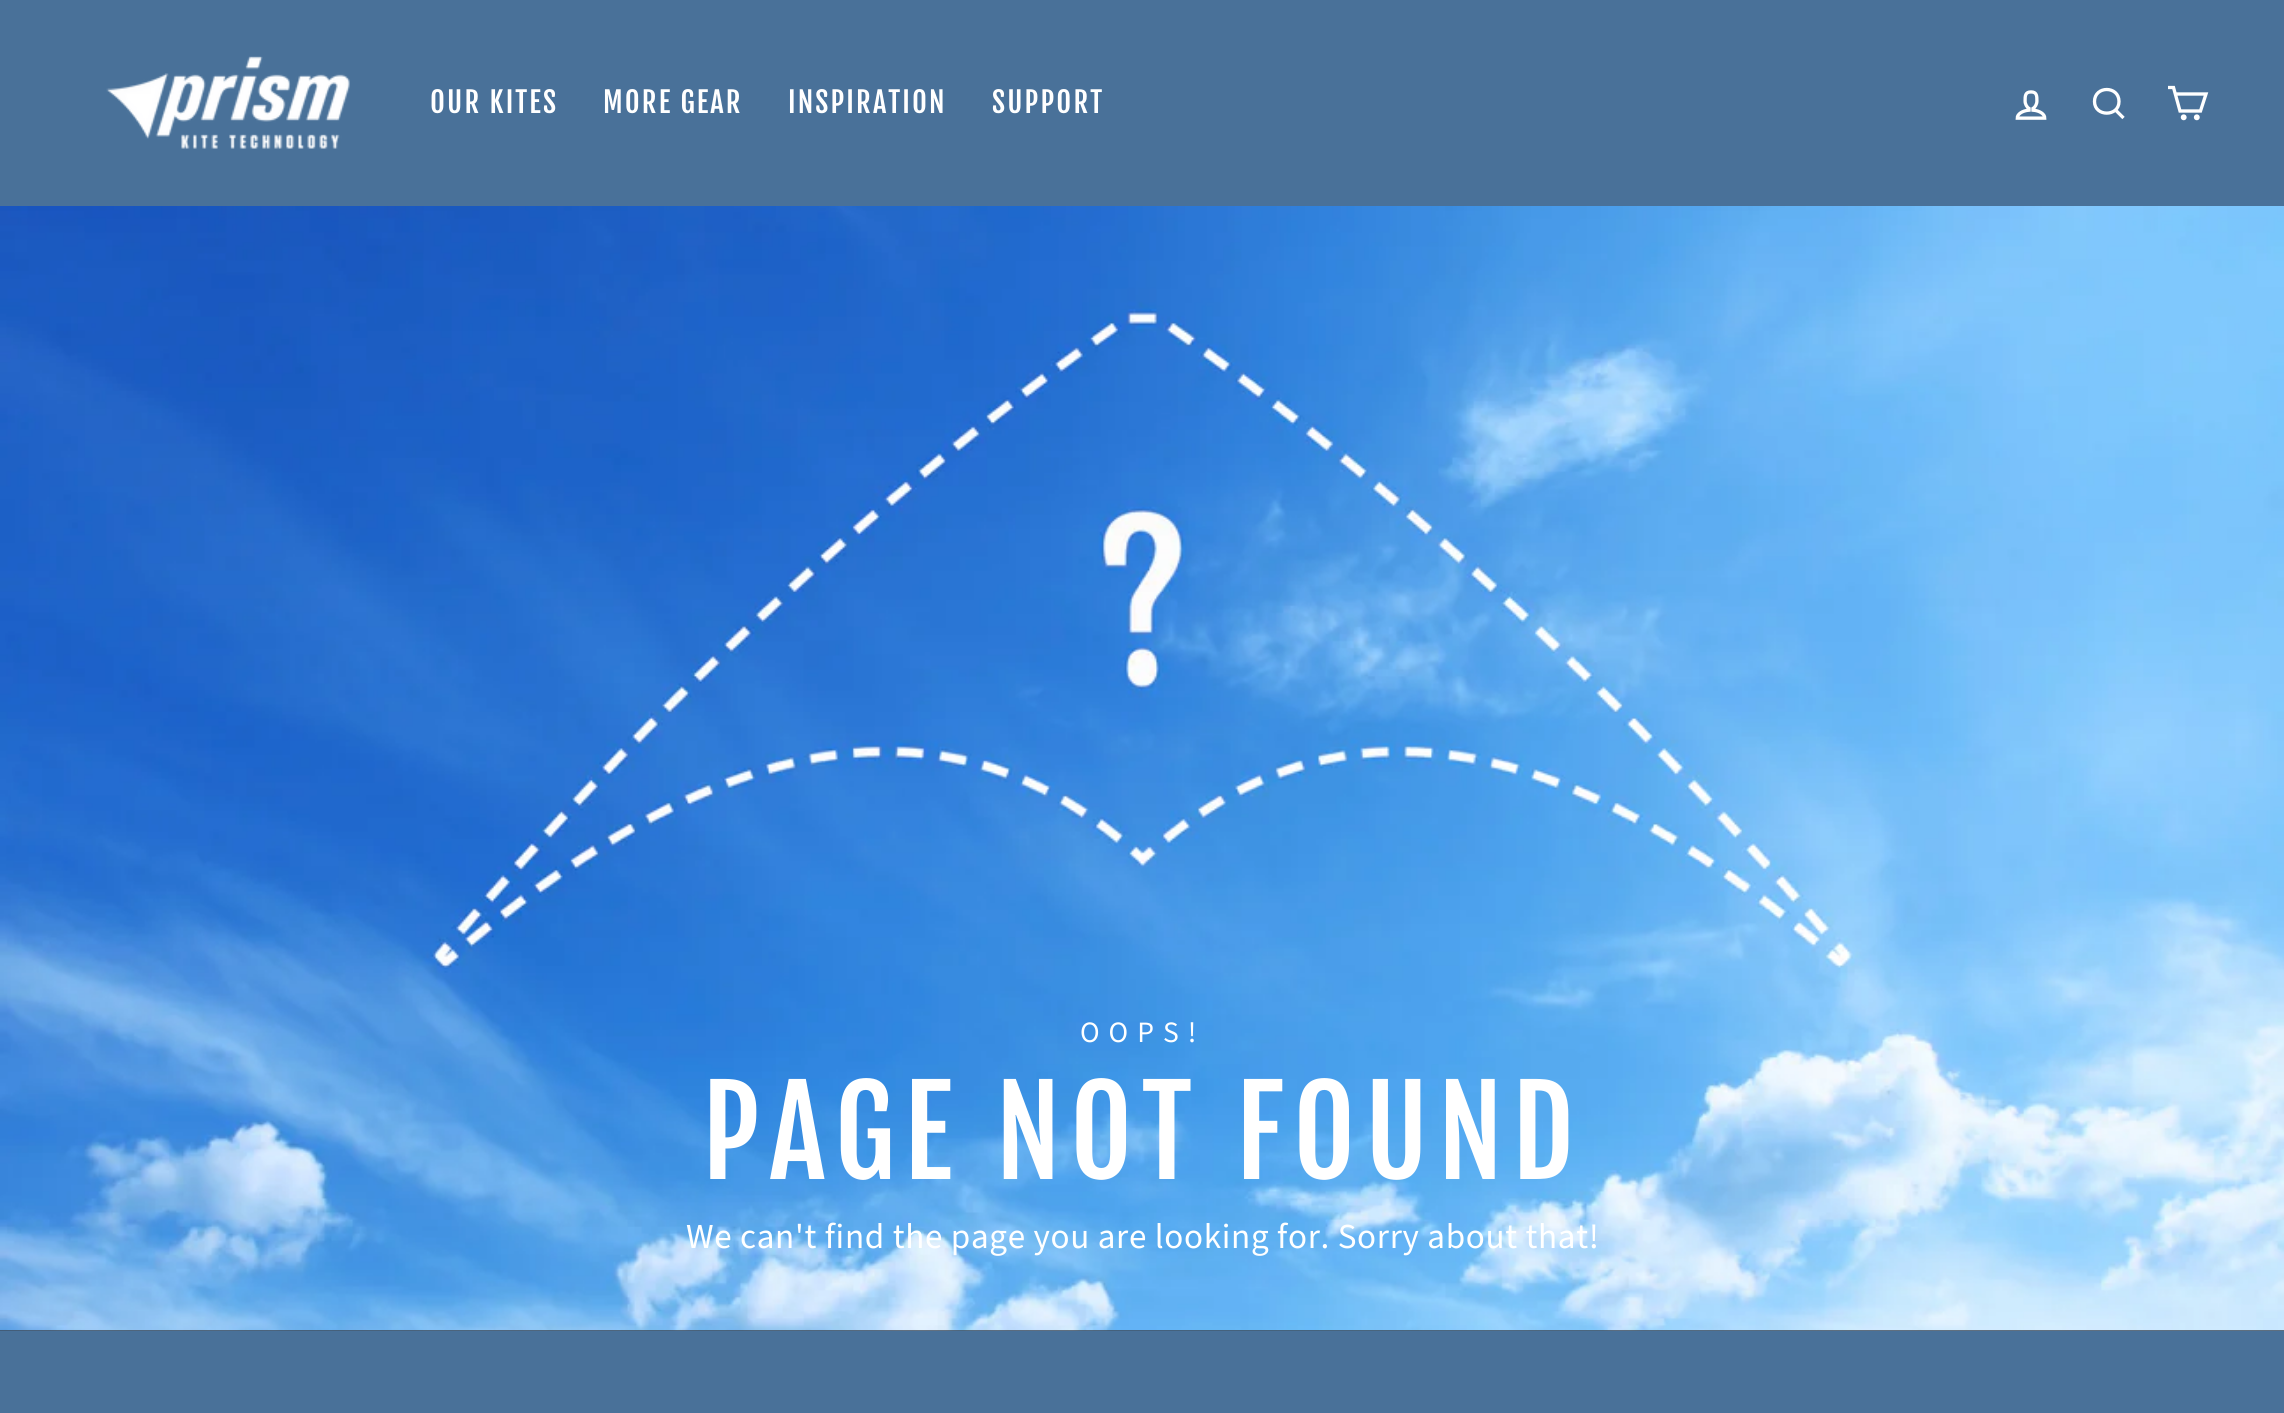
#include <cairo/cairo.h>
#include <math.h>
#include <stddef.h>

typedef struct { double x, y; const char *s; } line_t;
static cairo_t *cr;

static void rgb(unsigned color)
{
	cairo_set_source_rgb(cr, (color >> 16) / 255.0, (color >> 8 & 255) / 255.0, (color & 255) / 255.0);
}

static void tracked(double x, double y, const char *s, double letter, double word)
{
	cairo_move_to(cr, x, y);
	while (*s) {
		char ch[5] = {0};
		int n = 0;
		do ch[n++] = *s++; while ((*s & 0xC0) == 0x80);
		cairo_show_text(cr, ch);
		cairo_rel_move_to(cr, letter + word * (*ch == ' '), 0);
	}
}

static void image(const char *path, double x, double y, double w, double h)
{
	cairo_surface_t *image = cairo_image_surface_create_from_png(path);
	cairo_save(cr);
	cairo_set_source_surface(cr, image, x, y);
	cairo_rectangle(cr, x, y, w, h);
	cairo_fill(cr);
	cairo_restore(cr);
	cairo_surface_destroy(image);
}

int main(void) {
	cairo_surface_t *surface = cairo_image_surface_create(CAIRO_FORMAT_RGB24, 2284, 1413);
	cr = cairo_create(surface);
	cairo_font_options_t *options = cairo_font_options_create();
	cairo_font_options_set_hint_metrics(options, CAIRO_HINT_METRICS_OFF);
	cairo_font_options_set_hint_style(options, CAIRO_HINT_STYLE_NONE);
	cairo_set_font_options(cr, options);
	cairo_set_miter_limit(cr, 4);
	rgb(0x497199);
	cairo_paint(cr);
	image("img/1.png", 106, 56, 244, 93);
	image("img/2.png", 2015, 90, 32, 30);
	cairo_new_path(cr);
	cairo_move_to(cr, 2119, 101.5);
	cairo_curve_to(cr, 2119, 117, 2094.5, 117, 2094.5, 101.5);
	cairo_curve_to(cr, 2094.5, 85.5, 2119, 85.5, 2119, 101.5);
	cairo_close_path(cr);
	cairo_move_to(cr, 2123.5, 118);
	cairo_line_to(cr, 2115.5, 110);
	rgb(0xffffff);
	cairo_set_line_width(cr, 3.3);
	cairo_stroke(cr);
	cairo_new_path(cr);
	cairo_move_to(cr, 2175, 94);
	cairo_line_to(cr, 2206, 94);
	cairo_line_to(cr, 2200.5, 111);
	cairo_line_to(cr, 2180, 111);
	cairo_line_to(cr, 2173.5, 87.5);
	cairo_line_to(cr, 2168, 87.5);
	cairo_stroke(cr);
	cairo_arc(cr, 2183.7, 117.3, 1.3, 0, 2 * M_PI);
	cairo_fill_preserve(cr);
	cairo_stroke(cr);
	cairo_arc(cr, 2196.8, 117.3, 1.3, 0, 2 * M_PI);
	cairo_fill_preserve(cr);
	cairo_stroke(cr);
	rgb(0x3a4554);
	cairo_rectangle(cr, 0, 1330, 2284, 1);
	cairo_fill(cr);
	image("img/3.png", 0, 206, 2284, 1125);
	cairo_select_font_face(cr, "Fjalla One", CAIRO_FONT_SLANT_NORMAL, CAIRO_FONT_WEIGHT_NORMAL);
	cairo_set_font_size(cr, 28.5);
	rgb(0xffffff);
	{
		static const line_t items[] = {
			{430, 113, "OUR KITES"},
			{603, 113, "MORE GEAR"},
			{788, 113, "INSPIRATION"},
			{992, 113, "SUPPORT"},
		};
		for (size_t i = 0; i < sizeof items / sizeof *items; i++) {
			tracked(items[i].x, items[i].y, items[i].s, 2.1, 0);
		}
	}
	cairo_select_font_face(cr, "Source Sans Pro", CAIRO_FONT_SLANT_NORMAL, CAIRO_FONT_WEIGHT_NORMAL);
	cairo_set_font_size(cr, 29.5);
	tracked(1080, 1042, "OOPS!", 9, 0);
	cairo_select_font_face(cr, "Fjalla One", CAIRO_FONT_SLANT_NORMAL, CAIRO_FONT_WEIGHT_NORMAL);
	cairo_set_font_size(cr, 120);
	tracked(702, 1179, "PAGE NOT FOUND", 9, 0);
	cairo_select_font_face(cr, "Source Sans Pro", CAIRO_FONT_SLANT_NORMAL, CAIRO_FONT_WEIGHT_NORMAL);
	cairo_set_font_size(cr, 35.1);
	tracked(686, 1248, "We can't find the page you are looking for. Sorry about that!", 0.68, 0);
	cairo_surface_write_to_png(surface, "page.png");
	cairo_font_options_destroy(options);
	cairo_destroy(cr);
	cairo_surface_destroy(surface);
	return 0;
}
